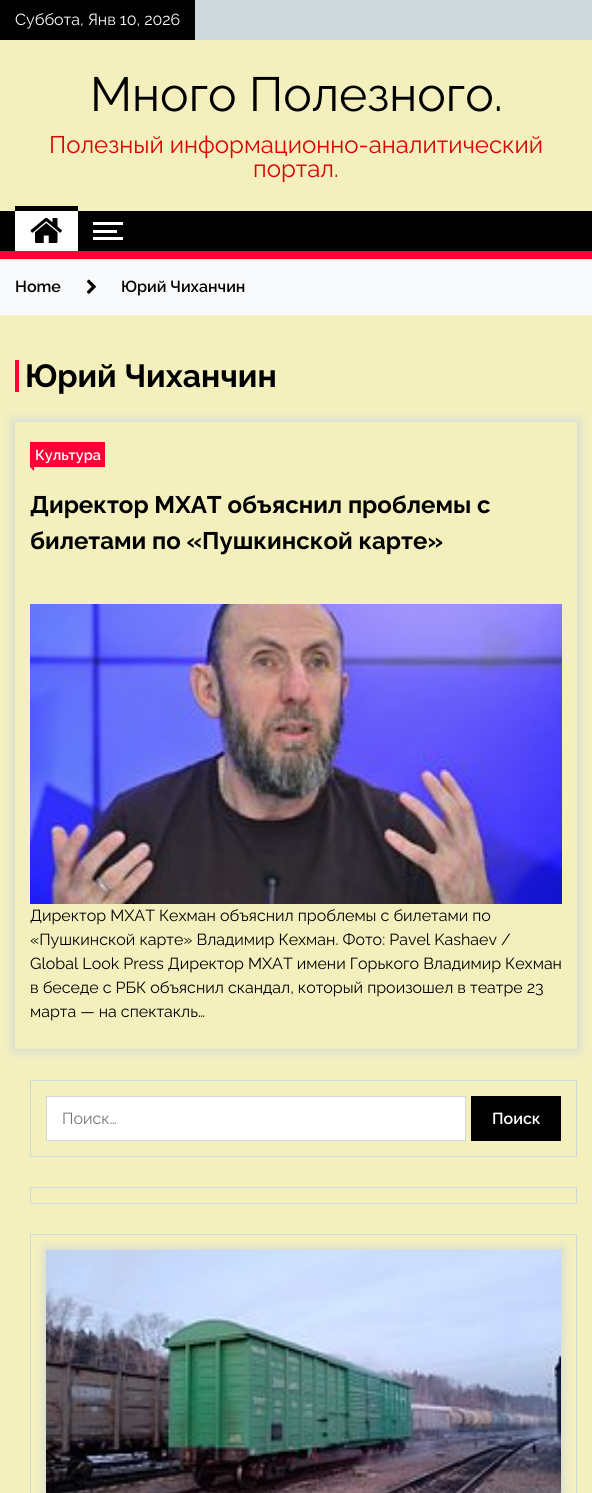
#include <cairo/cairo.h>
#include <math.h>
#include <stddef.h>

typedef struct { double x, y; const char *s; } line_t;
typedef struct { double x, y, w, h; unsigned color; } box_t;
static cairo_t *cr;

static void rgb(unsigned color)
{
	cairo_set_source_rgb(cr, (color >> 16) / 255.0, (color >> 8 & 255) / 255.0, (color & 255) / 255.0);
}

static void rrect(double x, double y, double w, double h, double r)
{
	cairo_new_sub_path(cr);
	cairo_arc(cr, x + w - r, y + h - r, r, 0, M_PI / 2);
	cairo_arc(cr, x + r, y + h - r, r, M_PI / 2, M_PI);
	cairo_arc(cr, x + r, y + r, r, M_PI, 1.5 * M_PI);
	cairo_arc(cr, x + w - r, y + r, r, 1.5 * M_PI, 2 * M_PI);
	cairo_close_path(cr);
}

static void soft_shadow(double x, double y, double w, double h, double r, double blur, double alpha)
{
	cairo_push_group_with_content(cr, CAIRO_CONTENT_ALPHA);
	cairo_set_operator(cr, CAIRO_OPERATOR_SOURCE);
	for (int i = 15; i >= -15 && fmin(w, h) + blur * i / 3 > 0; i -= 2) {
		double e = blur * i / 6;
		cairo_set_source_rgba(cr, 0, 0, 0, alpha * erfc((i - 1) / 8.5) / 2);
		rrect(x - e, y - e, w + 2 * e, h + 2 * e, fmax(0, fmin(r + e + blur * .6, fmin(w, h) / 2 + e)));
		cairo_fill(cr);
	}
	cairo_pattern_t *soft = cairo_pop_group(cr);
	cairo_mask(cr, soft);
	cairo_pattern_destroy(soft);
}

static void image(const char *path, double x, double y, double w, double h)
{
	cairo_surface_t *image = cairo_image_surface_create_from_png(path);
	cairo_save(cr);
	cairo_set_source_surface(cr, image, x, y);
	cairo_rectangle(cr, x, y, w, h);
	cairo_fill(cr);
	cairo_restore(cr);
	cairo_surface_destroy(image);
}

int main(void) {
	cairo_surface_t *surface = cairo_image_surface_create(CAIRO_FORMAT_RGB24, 592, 1493);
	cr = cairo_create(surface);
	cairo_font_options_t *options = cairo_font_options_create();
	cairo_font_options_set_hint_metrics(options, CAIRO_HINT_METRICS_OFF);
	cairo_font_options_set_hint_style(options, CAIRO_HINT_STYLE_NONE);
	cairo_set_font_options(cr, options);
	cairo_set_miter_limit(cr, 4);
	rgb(0xf4f0be);
	cairo_paint(cr);
	{
		static const box_t items[] = {
			{195, 0, 397, 40, 0xcfd8dc},
			{0, 0, 195, 40, 0x000000},
			{0, 211, 592, 40, 0x000000},
			{15, 211, 63, 40, 0xffffff},
			{15, 206, 63, 5, 0x000000},
		};
		for (size_t i = 0; i < sizeof items / sizeof *items; i++) {
			rgb(items[i].color);
			cairo_rectangle(cr, items[i].x, items[i].y, items[i].w, items[i].h);
			cairo_fill(cr);
		}
	}
	image("img/1.png", 30, 217, 32, 26);
	{
		static const box_t items[] = {
			{93, 222, 30, 3, 0xffffff},
			{93, 237, 30, 3, 0xffffff},
			{93, 230, 24, 3, 0xffffff},
			{0, 251, 592, 8, 0xff0036},
			{0, 260, 592, 55, 0xf8f9fa},
		};
		for (size_t i = 0; i < sizeof items / sizeof *items; i++) {
			rgb(items[i].color);
			cairo_rectangle(cr, items[i].x, items[i].y, items[i].w, items[i].h);
			cairo_fill(cr);
		}
	}
	image("img/2.png", 86, 279, 10, 15);
	rgb(0xff0036);
	cairo_rectangle(cr, 15, 360, 4, 32);
	cairo_fill(cr);
	cairo_save(cr);
	cairo_set_fill_rule(cr, CAIRO_FILL_RULE_EVEN_ODD);
	cairo_new_path(cr);
	cairo_move_to(cr, 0, 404);
	cairo_line_to(cr, 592, 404);
	cairo_line_to(cr, 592, 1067);
	cairo_line_to(cr, 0, 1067);
	cairo_close_path(cr);
	cairo_move_to(cr, 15, 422);
	cairo_line_to(cr, 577, 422);
	cairo_line_to(cr, 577, 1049);
	cairo_line_to(cr, 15, 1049);
	cairo_close_path(cr);
	cairo_clip(cr);
	rgb(0xcfd8dc);
	soft_shadow(13, 420, 566, 631, 0, 5, 1);
	cairo_restore(cr);
	cairo_rectangle(cr, 30, 442, 75, 25);
	cairo_fill(cr);
	cairo_new_path(cr);
	cairo_move_to(cr, 34, 467);
	cairo_line_to(cr, 34, 471);
	cairo_line_to(cr, 30, 467);
	cairo_close_path(cr);
	cairo_fill(cr);
	image("img/3.png", 30, 604, 532, 300);
	cairo_rectangle(cr, 30.5, 1080.5, 546, 76);
	rgb(0xcfd8dc);
	cairo_set_line_width(cr, 1);
	cairo_stroke(cr);
	rgb(0xffffff);
	cairo_rectangle(cr, 46.5, 1096.5, 419, 44);
	cairo_fill_preserve(cr);
	rgb(0xcfd8dc);
	cairo_stroke(cr);
	rgb(0x000000);
	cairo_rectangle(cr, 471, 1096, 90, 45);
	cairo_fill(cr);
	cairo_rectangle(cr, 30.5, 1187.5, 546, 16);
	rgb(0xcfd8dc);
	cairo_stroke(cr);
	cairo_rectangle(cr, 30.5, 1234.5, 546, 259);
	cairo_stroke(cr);
	rgb(0xcfd8dc);
	soft_shadow(44, 1248, 519, 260, 0, 5, 1);
	image("img/4.png", 46, 1250, 515, 243);
	cairo_select_font_face(cr, "Raleway", CAIRO_FONT_SLANT_NORMAL, CAIRO_FONT_WEIGHT_NORMAL);
	cairo_set_font_size(cr, 16);
	rgb(0xffffff);
	cairo_move_to(cr, 15, 25);
	cairo_show_text(cr, "Суббота, Янв 10, 2026");
	cairo_set_font_size(cr, 48);
	rgb(0x000000);
	cairo_move_to(cr, 90, 111);
	cairo_show_text(cr, "Много Полезного.");
	cairo_set_font_size(cr, 24);
	rgb(0xdd0202);
	cairo_move_to(cr, 49, 153);
	cairo_show_text(cr, "Полезный информационно-аналитический");
	cairo_move_to(cr, 253, 177);
	cairo_show_text(cr, "портал.");
	cairo_select_font_face(cr, "Raleway SemiBold", CAIRO_FONT_SLANT_NORMAL, CAIRO_FONT_WEIGHT_NORMAL);
	cairo_set_font_size(cr, 16);
	rgb(0x000000);
	cairo_move_to(cr, 15, 292);
	cairo_show_text(cr, "Home");
	cairo_move_to(cr, 121, 292);
	cairo_show_text(cr, "Юрий Чиханчин");
	cairo_select_font_face(cr, "Raleway", CAIRO_FONT_SLANT_NORMAL, CAIRO_FONT_WEIGHT_BOLD);
	cairo_set_font_size(cr, 32);
	cairo_move_to(cr, 25, 387);
	cairo_show_text(cr, "Юрий Чиханчин");
	cairo_select_font_face(cr, "Raleway SemiBold", CAIRO_FONT_SLANT_NORMAL, CAIRO_FONT_WEIGHT_NORMAL);
	cairo_set_font_size(cr, 14.5);
	rgb(0xffffff);
	cairo_move_to(cr, 35, 460);
	cairo_show_text(cr, "Культура");
	cairo_select_font_face(cr, "Raleway", CAIRO_FONT_SLANT_NORMAL, CAIRO_FONT_WEIGHT_BOLD);
	cairo_set_font_size(cr, 24);
	rgb(0x000000);
	cairo_move_to(cr, 30, 513);
	cairo_show_text(cr, "Директор МХАТ объяснил проблемы с");
	cairo_move_to(cr, 30, 549);
	cairo_show_text(cr, "билетами по «Пушкинской карте»");
	cairo_select_font_face(cr, "Raleway", CAIRO_FONT_SLANT_NORMAL, CAIRO_FONT_WEIGHT_NORMAL);
	cairo_set_font_size(cr, 16);
	{
		static const line_t items[] = {
			{30, 921, "Директор МХАТ Кехман объяснил проблемы с билетами по"},
			{30, 945, "«Пушкинской карте» Владимир Кехман. Фото: Pavel Kashaev /"},
			{30, 969, "Global Look Press Директор МХАТ имени Горького Владимир Кехман"},
			{30, 993, "в беседе с РБК объяснил скандал, который произошел в театре 23"},
			{30, 1017, "марта — на спектакль…"},
		};
		for (size_t i = 0; i < sizeof items / sizeof *items; i++) {
			cairo_move_to(cr, items[i].x, items[i].y);
			cairo_show_text(cr, items[i].s);
		}
	}
	rgb(0x757575);
	cairo_move_to(cr, 62, 1124);
	cairo_show_text(cr, "Поиск…");
	cairo_select_font_face(cr, "Raleway SemiBold", CAIRO_FONT_SLANT_NORMAL, CAIRO_FONT_WEIGHT_NORMAL);
	rgb(0xffffff);
	cairo_move_to(cr, 492, 1124);
	cairo_show_text(cr, "Поиск");
	cairo_surface_write_to_png(surface, "page.png");
	cairo_font_options_destroy(options);
	cairo_destroy(cr);
	cairo_surface_destroy(surface);
	return 0;
}
